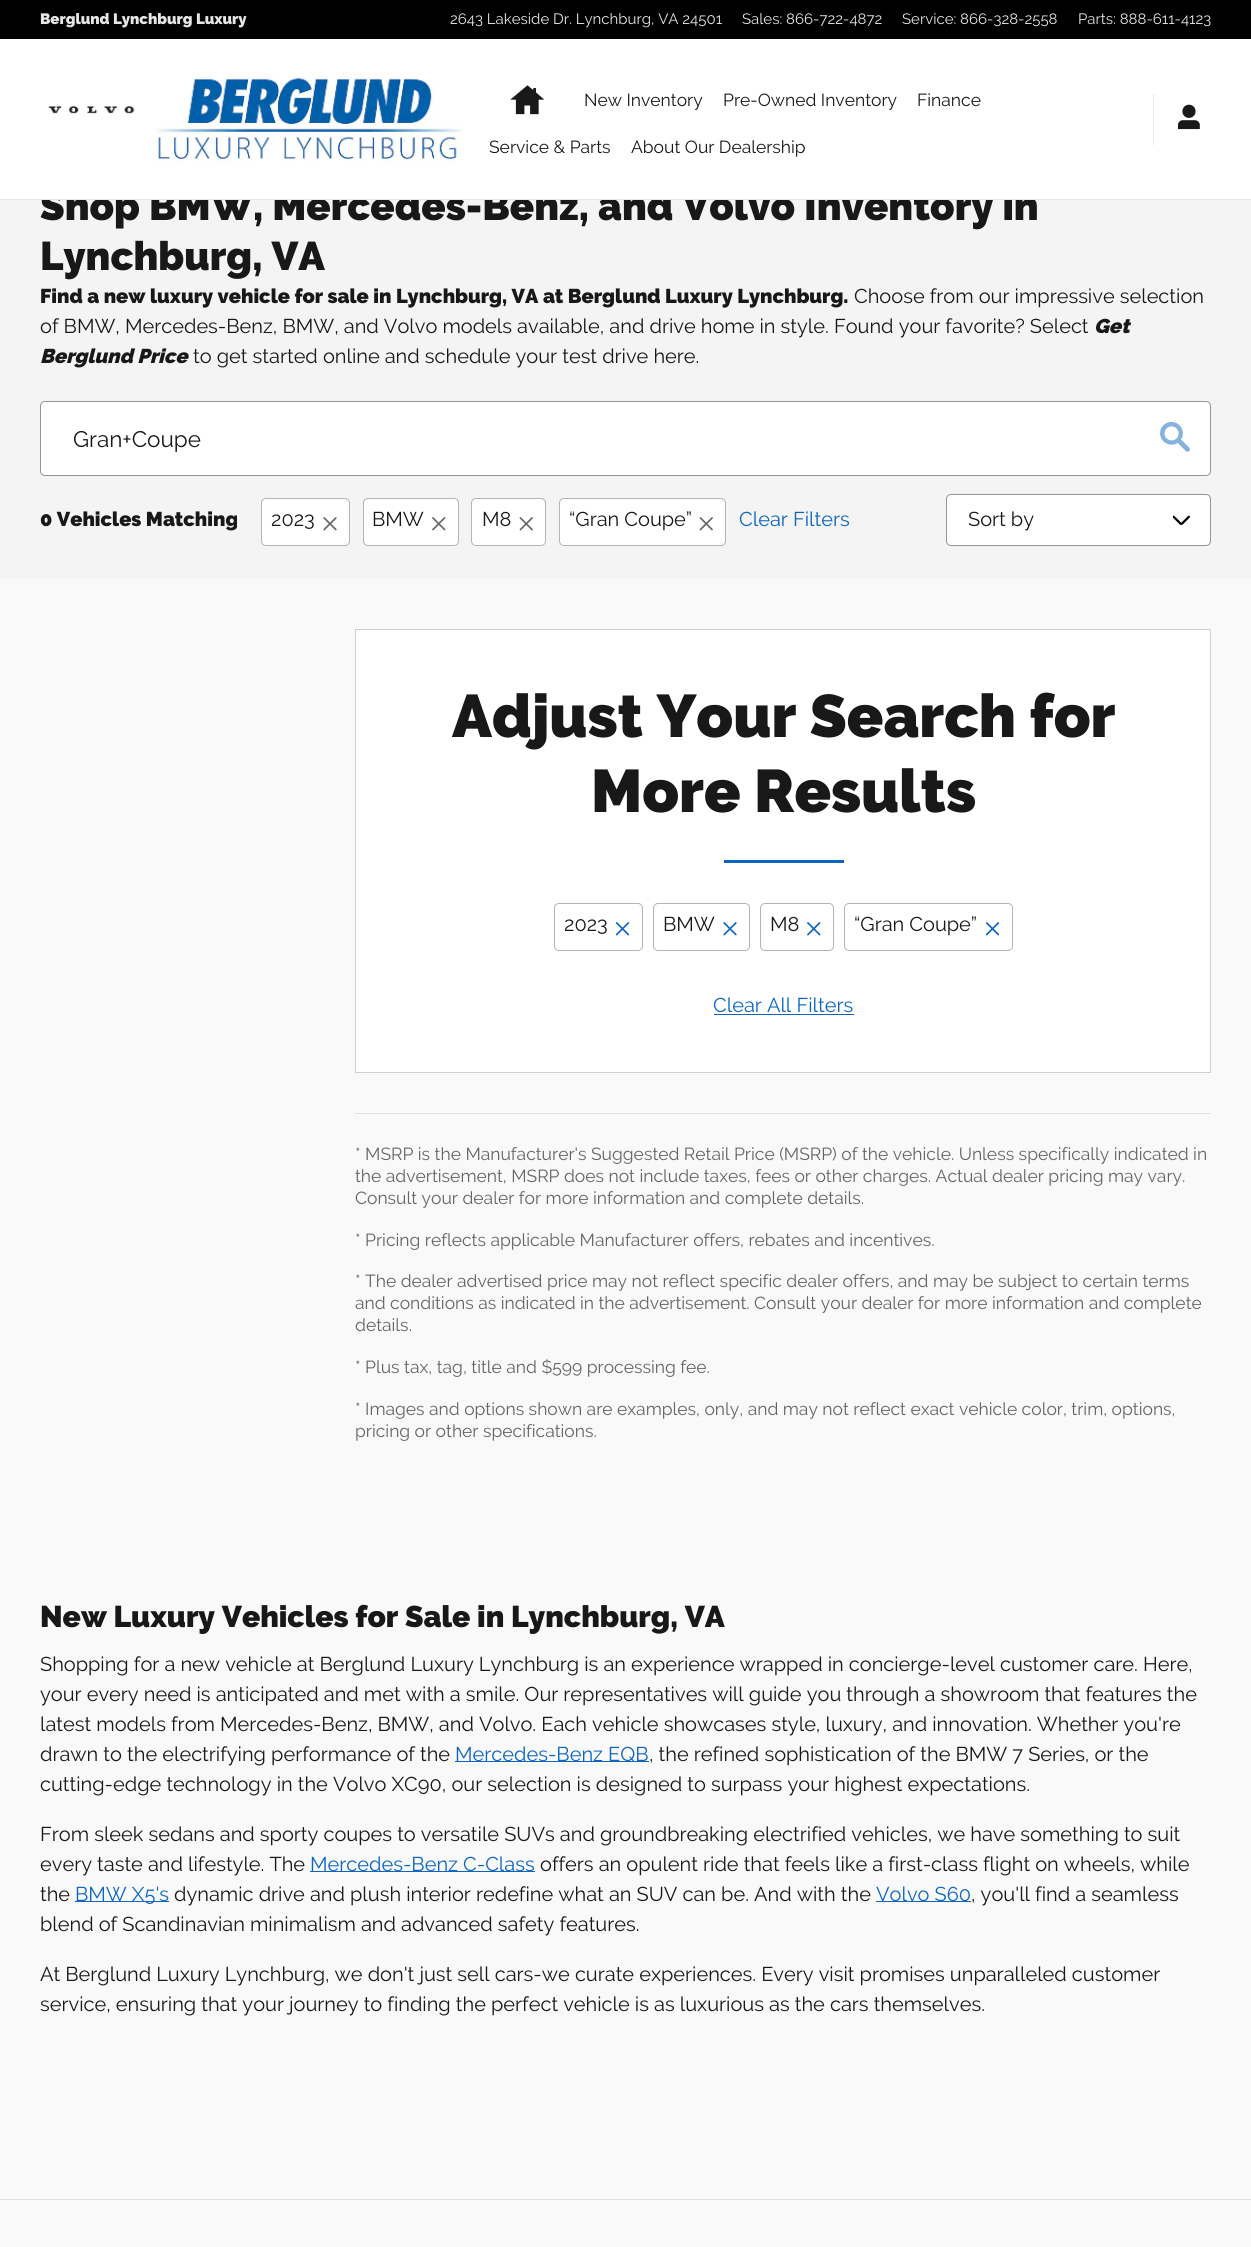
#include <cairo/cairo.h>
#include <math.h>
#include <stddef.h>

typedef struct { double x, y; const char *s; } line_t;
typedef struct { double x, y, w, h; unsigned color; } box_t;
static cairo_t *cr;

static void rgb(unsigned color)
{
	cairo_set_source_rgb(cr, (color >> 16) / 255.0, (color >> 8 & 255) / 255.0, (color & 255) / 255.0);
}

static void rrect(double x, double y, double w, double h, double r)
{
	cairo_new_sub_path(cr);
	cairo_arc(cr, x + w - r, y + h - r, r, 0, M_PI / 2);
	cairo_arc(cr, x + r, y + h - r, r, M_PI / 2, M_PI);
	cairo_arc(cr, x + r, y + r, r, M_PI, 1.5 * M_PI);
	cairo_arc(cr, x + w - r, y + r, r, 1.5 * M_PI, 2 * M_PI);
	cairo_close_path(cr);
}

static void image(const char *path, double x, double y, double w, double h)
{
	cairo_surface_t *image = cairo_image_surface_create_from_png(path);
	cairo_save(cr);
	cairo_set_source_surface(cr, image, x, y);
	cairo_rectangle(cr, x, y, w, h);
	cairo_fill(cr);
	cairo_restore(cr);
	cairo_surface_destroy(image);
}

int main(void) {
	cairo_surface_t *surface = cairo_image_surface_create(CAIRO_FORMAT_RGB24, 1251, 2247);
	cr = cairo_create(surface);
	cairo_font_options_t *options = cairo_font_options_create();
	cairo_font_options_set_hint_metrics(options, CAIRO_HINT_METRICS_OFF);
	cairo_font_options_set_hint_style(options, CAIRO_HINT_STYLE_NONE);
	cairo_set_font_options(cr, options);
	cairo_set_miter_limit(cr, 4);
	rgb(0xf9f9fa);
	cairo_paint(cr);
	rgb(0x000000);
	cairo_rectangle(cr, 0, 0, 1251, 39);
	cairo_fill(cr);
	rgb(0xf4f4f4);
	cairo_rectangle(cr, 0, 200, 1251, 379);
	cairo_fill(cr);
	rgb(0xffffff);
	rrect(40.5, 401.5, 1170, 74, 4.5);
	cairo_fill_preserve(cr);
	rgb(0x949599);
	cairo_set_line_width(cr, 1);
	cairo_stroke(cr);
	image("img/5.png", 1160, 421, 30, 31);
	rgb(0xffffff);
	rrect(261.5, 498.5, 88, 47, 4.5);
	cairo_fill_preserve(cr);
	rgb(0xb3b4b7);
	cairo_stroke(cr);
	image("img/6.png", 323, 517, 14, 14);
	rgb(0xffffff);
	rrect(363.5, 498.5, 95, 47, 4.5);
	cairo_fill_preserve(cr);
	rgb(0xb3b4b7);
	cairo_stroke(cr);
	image("img/7.png", 432, 517, 14, 14);
	rgb(0xffffff);
	rrect(471.5, 498.5, 74, 47, 4.5);
	cairo_fill_preserve(cr);
	rgb(0xb3b4b7);
	cairo_stroke(cr);
	image("img/8.png", 519, 517, 14, 14);
	rgb(0xffffff);
	rrect(559.5, 498.5, 166, 47, 4.5);
	cairo_fill_preserve(cr);
	rgb(0xb3b4b7);
	cairo_stroke(cr);
	image("img/8.png", 699, 517, 14, 14);
	rgb(0xffffff);
	rrect(946, 494, 265, 52, 5);
	cairo_fill(cr);
	image("img/9.png", 1173, 515, 17, 10);
	rrect(946.5, 494.5, 264, 51, 4.5);
	rgb(0x949599);
	cairo_stroke(cr);
	rgb(0xffffff);
	cairo_rectangle(cr, 355.5, 629.5, 855, 443);
	cairo_fill_preserve(cr);
	rgb(0xcecfd1);
	cairo_stroke(cr);
	rgb(0x0d65bf);
	cairo_rectangle(cr, 724, 860, 120, 3);
	cairo_fill(cr);
	rrect(554.5, 903.5, 88, 47, 4.5);
	rgb(0xb3b4b7);
	cairo_stroke(cr);
	image("img/10.png", 615, 922, 15, 14);
	rrect(653.5, 903.5, 96, 47, 4.5);
	cairo_stroke(cr);
	image("img/11.png", 723, 922, 14, 14);
	rrect(760.5, 903.5, 73, 47, 4.5);
	cairo_stroke(cr);
	image("img/12.png", 807, 922, 14, 14);
	rrect(844.5, 903.5, 168, 47, 4.5);
	cairo_stroke(cr);
	image("img/10.png", 985, 922, 15, 14);
	{
		static const box_t items[] = {
			{714, 1014, 140, 1, 0x0d65bf},
			{355, 1113, 856, 1, 0xe0e0e1},
			{455, 1761, 194, 1, 0x0d65bf},
			{310, 1871, 225, 1, 0x0d65bf},
			{75, 1901, 94, 1, 0x0d65bf},
			{876, 1901, 95, 1, 0x0d65bf},
			{0, 2199, 1251, 1, 0xe0e0e1},
		};
		for (size_t i = 0; i < sizeof items / sizeof *items; i++) {
			rgb(items[i].color);
			cairo_rectangle(cr, items[i].x, items[i].y, items[i].w, items[i].h);
			cairo_fill(cr);
		}
	}
	cairo_select_font_face(cr, "Raleway Black", CAIRO_FONT_SLANT_NORMAL, CAIRO_FONT_WEIGHT_NORMAL);
	cairo_set_font_size(cr, 15);
	rgb(0xe6e6e6);
	cairo_move_to(cr, 40, 24);
	cairo_show_text(cr, "Berglund Lynchburg Luxury");
	cairo_select_font_face(cr, "Raleway", CAIRO_FONT_SLANT_NORMAL, CAIRO_FONT_WEIGHT_NORMAL);
	{
		static const line_t items[] = {
			{450, 24, "2643 Lakeside Dr. Lynchburg, VA 24501"},
			{742, 24, "Sales: 866-722-4872"},
			{902, 24, "Service: 866-328-2558"},
			{1078, 24, "Parts: 888-611-4123"},
		};
		for (size_t i = 0; i < sizeof items / sizeof *items; i++) {
			cairo_move_to(cr, items[i].x, items[i].y);
			cairo_show_text(cr, items[i].s);
		}
	}
	cairo_select_font_face(cr, "Raleway Black", CAIRO_FONT_SLANT_NORMAL, CAIRO_FONT_WEIGHT_NORMAL);
	cairo_set_font_size(cr, 40);
	rgb(0x181818);
	cairo_move_to(cr, 40, 220);
	cairo_show_text(cr, "Shop BMW, Mercedes-Benz, and Volvo Inventory in");
	rgb(0xffffff);
	cairo_rectangle(cr, 0, 39, 1251, 160);
	cairo_fill(cr);
	image("img/1.png", 48, 106, 87, 8);
	image("img/4.png", 1177, 104, 23, 26);
	rgb(0xe6e6e6);
	cairo_rectangle(cr, 1153, 94, 1, 51);
	cairo_fill(cr);
	cairo_select_font_face(cr, "Raleway", CAIRO_FONT_SLANT_NORMAL, CAIRO_FONT_WEIGHT_NORMAL);
	cairo_set_font_size(cr, 17.5);
	rgb(0x181818);
	{
		static const line_t items[] = {
			{631, 153, "About Our Dealership"},
			{489, 153, "Service & Parts"},
			{917, 106, "Finance"},
			{723, 106, "Pre-Owned Inventory"},
			{584, 106, "New Inventory"},
		};
		for (size_t i = 0; i < sizeof items / sizeof *items; i++) {
			cairo_move_to(cr, items[i].x, items[i].y);
			cairo_show_text(cr, items[i].s);
		}
	}
	image("img/3.png", 510, 85, 35, 30);
	image("img/2.png", 156, 75, 307, 87);
	rgb(0xe6e6e6);
	cairo_rectangle(cr, 0, 199, 1251, 1);
	cairo_fill(cr);
	cairo_select_font_face(cr, "Raleway Black", CAIRO_FONT_SLANT_NORMAL, CAIRO_FONT_WEIGHT_NORMAL);
	cairo_set_font_size(cr, 40);
	rgb(0x181818);
	cairo_move_to(cr, 40, 270);
	cairo_show_text(cr, "Lynchburg, VA");
	cairo_set_font_size(cr, 20);
	cairo_move_to(cr, 40, 303);
	cairo_show_text(cr, "Find a new luxury vehicle for sale in Lynchburg, VA at Berglund Luxury Lynchburg.");
	cairo_select_font_face(cr, "Raleway", CAIRO_FONT_SLANT_NORMAL, CAIRO_FONT_WEIGHT_NORMAL);
	cairo_move_to(cr, 854, 303);
	cairo_show_text(cr, "Choose from our impressive selection");
	cairo_move_to(cr, 40, 333);
	cairo_show_text(cr, "of BMW, Mercedes-Benz, BMW, and Volvo models available, and drive home in style. Found your favorite? Select");
	cairo_select_font_face(cr, "Raleway Black", CAIRO_FONT_SLANT_ITALIC, CAIRO_FONT_WEIGHT_NORMAL);
	cairo_move_to(cr, 1094, 333);
	cairo_show_text(cr, "Get");
	cairo_move_to(cr, 40, 363);
	cairo_show_text(cr, "Berglund Price");
	cairo_select_font_face(cr, "Raleway", CAIRO_FONT_SLANT_NORMAL, CAIRO_FONT_WEIGHT_NORMAL);
	cairo_move_to(cr, 193, 363);
	cairo_show_text(cr, "to get started online and schedule your test drive here.");
	cairo_set_font_size(cr, 22.5);
	cairo_move_to(cr, 73, 447);
	cairo_show_text(cr, "Gran+Coupe");
	cairo_select_font_face(cr, "Raleway Black", CAIRO_FONT_SLANT_NORMAL, CAIRO_FONT_WEIGHT_NORMAL);
	cairo_set_font_size(cr, 20);
	cairo_move_to(cr, 40, 526);
	cairo_show_text(cr, "0 Vehicles Matching");
	cairo_select_font_face(cr, "Raleway", CAIRO_FONT_SLANT_NORMAL, CAIRO_FONT_WEIGHT_NORMAL);
	{
		static const line_t items[] = {
			{271, 526, "2023"},
			{372, 526, "BMW"},
			{482, 526, "M8"},
			{569, 526, "“Gran Coupe”"},
		};
		for (size_t i = 0; i < sizeof items / sizeof *items; i++) {
			cairo_move_to(cr, items[i].x, items[i].y);
			cairo_show_text(cr, items[i].s);
		}
	}
	rgb(0x0d65bf);
	cairo_move_to(cr, 739, 526);
	cairo_show_text(cr, "Clear Filters");
	rgb(0x181818);
	cairo_move_to(cr, 968, 526);
	cairo_show_text(cr, "Sort by");
	cairo_select_font_face(cr, "Raleway Black", CAIRO_FONT_SLANT_NORMAL, CAIRO_FONT_WEIGHT_NORMAL);
	cairo_set_font_size(cr, 60);
	cairo_move_to(cr, 452, 737);
	cairo_show_text(cr, "Adjust Your Search for");
	cairo_move_to(cr, 591, 812);
	cairo_show_text(cr, "More Results");
	cairo_select_font_face(cr, "Raleway", CAIRO_FONT_SLANT_NORMAL, CAIRO_FONT_WEIGHT_NORMAL);
	cairo_set_font_size(cr, 20);
	{
		static const line_t items[] = {
			{564, 931, "2023"},
			{663, 931, "BMW"},
			{770, 931, "M8"},
			{854, 931, "“Gran Coupe”"},
		};
		for (size_t i = 0; i < sizeof items / sizeof *items; i++) {
			cairo_move_to(cr, items[i].x, items[i].y);
			cairo_show_text(cr, items[i].s);
		}
	}
	rgb(0x0d65bf);
	cairo_move_to(cr, 713, 1012);
	cairo_show_text(cr, "Clear All Filters");
	cairo_set_font_size(cr, 17.5);
	rgb(0x646464);
	{
		static const line_t items[] = {
			{355, 1160, "* MSRP is the Manufacturer's Suggested Retail Price (MSRP) of the vehicle. Unless specifically indicated in"},
			{355, 1182, "the advertisement, MSRP does not include taxes, fees or other charges. Actual dealer pricing may vary."},
			{355, 1204, "Consult your dealer for more information and complete details."},
			{355, 1246, "* Pricing reflects applicable Manufacturer offers, rebates and incentives."},
			{355, 1287, "* The dealer advertised price may not reflect specific dealer offers, and may be subject to certain terms"},
			{355, 1309, "and conditions as indicated in the advertisement. Consult your dealer for more information and complete"},
			{355, 1331, "details."},
			{355, 1373, "* Plus tax, tag, title and $599 processing fee."},
			{355, 1415, "* Images and options shown are examples, only, and may not reflect exact vehicle color, trim, options,"},
			{355, 1437, "pricing or other specifications."},
		};
		for (size_t i = 0; i < sizeof items / sizeof *items; i++) {
			cairo_move_to(cr, items[i].x, items[i].y);
			cairo_show_text(cr, items[i].s);
		}
	}
	cairo_select_font_face(cr, "Raleway Black", CAIRO_FONT_SLANT_NORMAL, CAIRO_FONT_WEIGHT_NORMAL);
	cairo_set_font_size(cr, 30);
	rgb(0x181818);
	cairo_move_to(cr, 40, 1627);
	cairo_show_text(cr, "New Luxury Vehicles for Sale in Lynchburg, VA");
	cairo_select_font_face(cr, "Raleway", CAIRO_FONT_SLANT_NORMAL, CAIRO_FONT_WEIGHT_NORMAL);
	cairo_set_font_size(cr, 20);
	{
		static const line_t items[] = {
			{40, 1671, "Shopping for a new vehicle at Berglund Luxury Lynchburg is an experience wrapped in concierge-level customer care. Here,"},
			{40, 1701, "your every need is anticipated and met with a smile. Our representatives will guide you through a showroom that features the"},
			{40, 1731, "latest models from Mercedes-Benz, BMW, and Volvo. Each vehicle showcases style, luxury, and innovation. Whether you're"},
			{40, 1761, "drawn to the electrifying performance of the"},
		};
		for (size_t i = 0; i < sizeof items / sizeof *items; i++) {
			cairo_move_to(cr, items[i].x, items[i].y);
			cairo_show_text(cr, items[i].s);
		}
	}
	rgb(0x0d65bf);
	cairo_move_to(cr, 455, 1761);
	cairo_show_text(cr, "Mercedes-Benz EQB");
	rgb(0x181818);
	{
		static const line_t items[] = {
			{649, 1761, ", the refined sophistication of the BMW 7 Series, or the"},
			{40, 1791, "cutting-edge technology in the Volvo XC90, our selection is designed to surpass your highest expectations."},
			{40, 1841, "From sleek sedans and sporty coupes to versatile SUVs and groundbreaking electrified vehicles, we have something to suit"},
			{40, 1871, "every taste and lifestyle. The"},
		};
		for (size_t i = 0; i < sizeof items / sizeof *items; i++) {
			cairo_move_to(cr, items[i].x, items[i].y);
			cairo_show_text(cr, items[i].s);
		}
	}
	rgb(0x0d65bf);
	cairo_move_to(cr, 310, 1871);
	cairo_show_text(cr, "Mercedes-Benz C-Class");
	rgb(0x181818);
	cairo_move_to(cr, 540, 1871);
	cairo_show_text(cr, "offers an opulent ride that feels like a first-class flight on wheels, while");
	cairo_move_to(cr, 40, 1901);
	cairo_show_text(cr, "the");
	rgb(0x0d65bf);
	cairo_move_to(cr, 75, 1901);
	cairo_show_text(cr, "BMW X5's");
	rgb(0x181818);
	cairo_move_to(cr, 174, 1901);
	cairo_show_text(cr, "dynamic drive and plush interior redefine what an SUV can be. And with the");
	rgb(0x0d65bf);
	cairo_move_to(cr, 876, 1901);
	cairo_show_text(cr, "Volvo S60");
	rgb(0x181818);
	{
		static const line_t items[] = {
			{971, 1901, ", you'll find a seamless"},
			{40, 1931, "blend of Scandinavian minimalism and advanced safety features."},
			{40, 1981, "At Berglund Luxury Lynchburg, we don't just sell cars-we curate experiences. Every visit promises unparalleled customer"},
			{40, 2011, "service, ensuring that your journey to finding the perfect vehicle is as luxurious as the cars themselves."},
		};
		for (size_t i = 0; i < sizeof items / sizeof *items; i++) {
			cairo_move_to(cr, items[i].x, items[i].y);
			cairo_show_text(cr, items[i].s);
		}
	}
	cairo_surface_write_to_png(surface, "page.png");
	cairo_font_options_destroy(options);
	cairo_destroy(cr);
	cairo_surface_destroy(surface);
	return 0;
}
